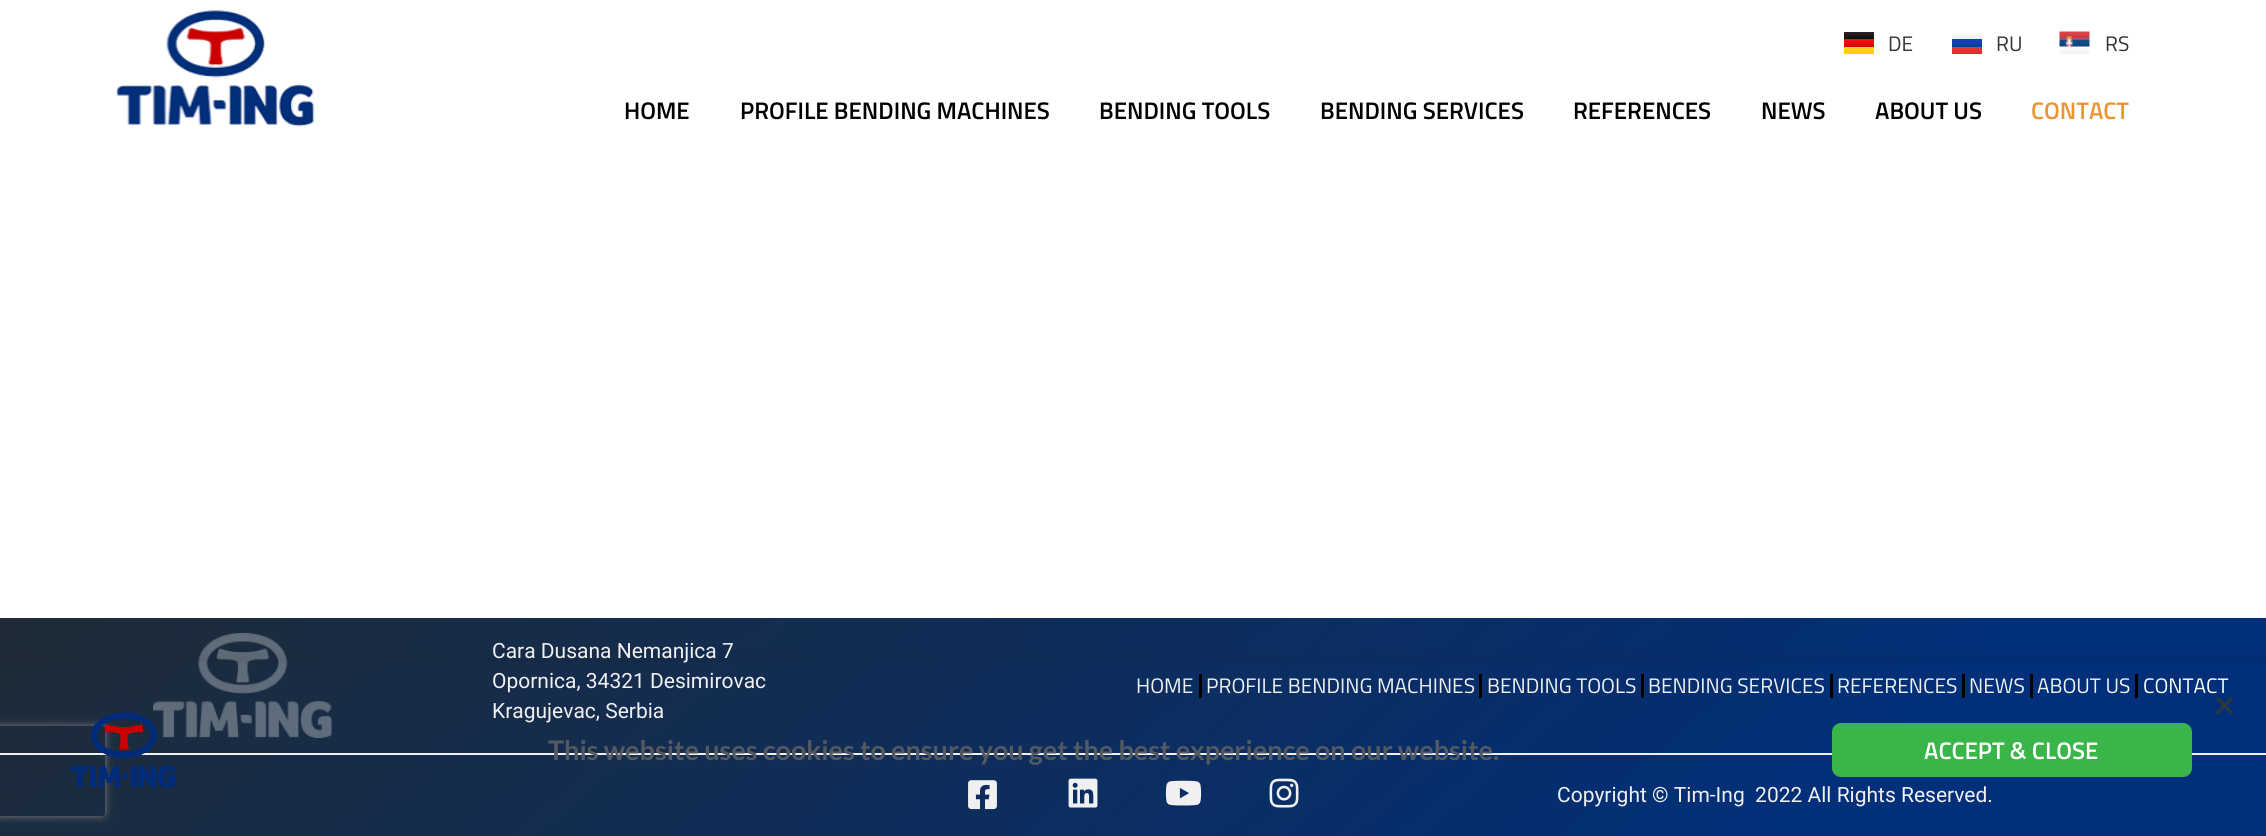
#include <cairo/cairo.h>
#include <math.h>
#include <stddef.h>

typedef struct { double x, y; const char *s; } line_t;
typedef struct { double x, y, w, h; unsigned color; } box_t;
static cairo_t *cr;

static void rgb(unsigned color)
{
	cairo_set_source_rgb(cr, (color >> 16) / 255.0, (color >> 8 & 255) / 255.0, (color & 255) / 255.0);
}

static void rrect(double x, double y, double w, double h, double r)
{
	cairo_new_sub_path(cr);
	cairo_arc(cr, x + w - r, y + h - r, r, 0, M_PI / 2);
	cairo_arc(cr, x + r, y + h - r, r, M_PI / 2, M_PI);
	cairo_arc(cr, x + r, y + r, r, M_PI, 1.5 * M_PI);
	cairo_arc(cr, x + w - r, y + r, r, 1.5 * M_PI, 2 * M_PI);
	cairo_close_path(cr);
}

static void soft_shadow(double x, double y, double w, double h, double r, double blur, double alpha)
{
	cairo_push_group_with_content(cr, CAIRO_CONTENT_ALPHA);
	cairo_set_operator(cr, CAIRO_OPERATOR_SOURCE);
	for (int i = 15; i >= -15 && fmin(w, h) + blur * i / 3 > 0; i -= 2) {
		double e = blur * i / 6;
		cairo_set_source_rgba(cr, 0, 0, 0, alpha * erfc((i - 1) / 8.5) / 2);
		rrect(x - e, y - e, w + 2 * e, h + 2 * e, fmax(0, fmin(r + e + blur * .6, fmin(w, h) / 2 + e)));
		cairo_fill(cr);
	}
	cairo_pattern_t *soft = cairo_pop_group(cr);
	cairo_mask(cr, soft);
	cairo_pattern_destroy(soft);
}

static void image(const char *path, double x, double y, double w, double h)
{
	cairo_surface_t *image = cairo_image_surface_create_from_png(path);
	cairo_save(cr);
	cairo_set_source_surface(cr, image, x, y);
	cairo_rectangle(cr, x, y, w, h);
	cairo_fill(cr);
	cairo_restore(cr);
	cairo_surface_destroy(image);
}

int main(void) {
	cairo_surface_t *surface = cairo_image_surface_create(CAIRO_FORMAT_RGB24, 2266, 836);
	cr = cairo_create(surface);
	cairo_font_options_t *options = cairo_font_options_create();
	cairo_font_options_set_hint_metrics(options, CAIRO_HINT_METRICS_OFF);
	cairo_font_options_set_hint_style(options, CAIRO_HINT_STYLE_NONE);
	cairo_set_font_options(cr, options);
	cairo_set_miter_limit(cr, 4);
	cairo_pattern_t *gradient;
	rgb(0xffffff);
	cairo_paint(cr);
	image("img/1.png", 116, 10, 199, 117);
	gradient = cairo_pattern_create_linear(1858, 32, 1858, 39);
	cairo_pattern_add_color_stop_rgba(gradient, 0, 0.149, 0.149, 0.149, 1);
	cairo_pattern_add_color_stop_rgba(gradient, 1, 0.051, 0.051, 0.051, 1);
	cairo_set_source(cr, gradient);
	cairo_pattern_destroy(gradient);
	cairo_rectangle(cr, 1844, 32, 30, 7);
	cairo_fill(cr);
	gradient = cairo_pattern_create_linear(1858, 39, 1858, 47);
	cairo_pattern_add_color_stop_rgba(gradient, 0, 0.941, 0.082, 0.082, 1);
	cairo_pattern_add_color_stop_rgba(gradient, 1, 0.871, 0, 0, 1);
	cairo_set_source(cr, gradient);
	cairo_pattern_destroy(gradient);
	cairo_rectangle(cr, 1844, 39, 30, 8);
	cairo_fill(cr);
	gradient = cairo_pattern_create_linear(1858, 47, 1858, 54);
	cairo_pattern_add_color_stop_rgba(gradient, 0, 1, 0.835, 0.129, 1);
	cairo_pattern_add_color_stop_rgba(gradient, 1, 1, 0.812, 0, 1);
	cairo_set_source(cr, gradient);
	cairo_pattern_destroy(gradient);
	cairo_rectangle(cr, 1844, 47, 30, 7);
	cairo_fill(cr);
	gradient = cairo_pattern_create_linear(1966, 32, 1966, 39);
	cairo_pattern_add_color_stop_rgba(gradient, 0, 1, 1, 1, 1);
	cairo_pattern_add_color_stop_rgba(gradient, 1, 0.941, 0.941, 0.941, 1);
	cairo_set_source(cr, gradient);
	cairo_pattern_destroy(gradient);
	cairo_rectangle(cr, 1952, 33, 30, 6);
	cairo_fill(cr);
	gradient = cairo_pattern_create_linear(1966, 39, 1966, 47);
	cairo_pattern_add_color_stop_rgba(gradient, 0, 0.047, 0.278, 0.718, 1);
	cairo_pattern_add_color_stop_rgba(gradient, 1, 0.027, 0.239, 0.643, 1);
	cairo_set_source(cr, gradient);
	cairo_pattern_destroy(gradient);
	cairo_rectangle(cr, 1952, 39, 30, 8);
	cairo_fill(cr);
	gradient = cairo_pattern_create_linear(1966, 47, 1966, 54);
	cairo_pattern_add_color_stop_rgba(gradient, 0, 0.898, 0.231, 0.208, 1);
	cairo_pattern_add_color_stop_rgba(gradient, 1, 0.827, 0.18, 0.157, 1);
	cairo_set_source(cr, gradient);
	cairo_pattern_destroy(gradient);
	cairo_rectangle(cr, 1952, 47, 30, 7);
	cairo_fill(cr);
	image("img/2.png", 2059, 31, 31, 23);
	gradient = cairo_pattern_create_linear(611, 105, 1655, 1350);
	cairo_pattern_add_color_stop_rgba(gradient, 0, 0.122, 0.169, 0.212, 1);
	cairo_pattern_add_color_stop_rgba(gradient, 0.81, 0.004, 0.184, 0.475, 1);
	cairo_set_source(cr, gradient);
	cairo_pattern_destroy(gradient);
	cairo_rectangle(cr, 0, 618, 2266, 218);
	cairo_fill(cr);
	rgb(0xf0f0f0);
	cairo_rectangle(cr, 0, 753, 2266, 2);
	cairo_fill(cr);
	cairo_save(cr);
	cairo_set_fill_rule(cr, CAIRO_FILL_RULE_EVEN_ODD);
	cairo_new_path(cr);
	cairo_move_to(cr, 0, 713);
	cairo_line_to(cr, 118, 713);
	cairo_line_to(cr, 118, 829);
	cairo_line_to(cr, 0, 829);
	cairo_close_path(cr);
	cairo_move_to(cr, -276, 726);
	cairo_line_to(cr, 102, 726);
	cairo_curve_to(cr, 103.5, 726, 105, 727.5, 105, 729);
	cairo_line_to(cr, 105, 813);
	cairo_curve_to(cr, 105, 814.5, 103.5, 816, 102, 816);
	cairo_line_to(cr, -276, 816);
	cairo_curve_to(cr, -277.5, 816, -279, 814.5, -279, 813);
	cairo_line_to(cr, -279, 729);
	cairo_curve_to(cr, -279, 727.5, -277.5, 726, -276, 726);
	cairo_close_path(cr);
	cairo_clip(cr);
	rgb(0x808080);
	soft_shadow(-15, 726, 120, 90, 3, 4, 1);
	cairo_restore(cr);
	image("img/3.png", 153, 633, 179, 105);
	{
		static const box_t items[] = {
			{1199, 674, 3, 24, 0x000000},
			{1479, 674, 3, 24, 0x000000},
			{1641, 674, 3, 24, 0x000000},
			{1830, 674, 3, 24, 0x000000},
			{1962, 674, 3, 24, 0x000000},
			{2030, 674, 3, 24, 0x000000},
			{2135, 674, 3, 24, 0x000000},
		};
		for (size_t i = 0; i < sizeof items / sizeof *items; i++) {
			rgb(items[i].color);
			cairo_rectangle(cr, items[i].x, items[i].y, items[i].w, items[i].h);
			cairo_fill(cr);
		}
	}
	image("img/4.png", 968, 780, 29, 30);
	image("img/5.png", 1068, 778, 30, 30);
	image("img/6.png", 1165, 780, 37, 26);
	image("img/7.png", 1269, 778, 30, 30);
	cairo_save(cr);
	cairo_rectangle(cr, 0, 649, 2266, 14);
	cairo_clip(cr);
	rgb(0x000000);
	soft_shadow(-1, 671, 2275, 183, 0, 17, 0.2);
	cairo_restore(cr);
	image("img/8.png", 2216, 697, 17, 17);
	image("img/9.png", 70, 712, 106, 76);
	rgb(0x39b54a);
	rrect(1832, 723, 360, 54, 9);
	cairo_fill(cr);
	cairo_select_font_face(cr, "Titillium Web", CAIRO_FONT_SLANT_NORMAL, CAIRO_FONT_WEIGHT_NORMAL);
	cairo_set_font_size(cr, 21);
	rgb(0x313639);
	{
		static const line_t items[] = {
			{1888, 51, "DE"},
			{1996, 51, "RU"},
			{2105, 51, "RS"},
		};
		for (size_t i = 0; i < sizeof items / sizeof *items; i++) {
			cairo_move_to(cr, items[i].x, items[i].y);
			cairo_show_text(cr, items[i].s);
		}
	}
	cairo_select_font_face(cr, "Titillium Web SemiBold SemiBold", CAIRO_FONT_SLANT_NORMAL, CAIRO_FONT_WEIGHT_NORMAL);
	cairo_set_font_size(cr, 24);
	rgb(0x000000);
	{
		static const line_t items[] = {
			{624, 119, "HOME"},
			{740, 119, "PROFILE BENDING MACHINES"},
			{1099, 119, "BENDING TOOLS"},
			{1320, 119, "BENDING SERVICES"},
			{1573, 119, "REFERENCES"},
			{1761, 119, "NEWS"},
			{1875, 119, "ABOUT US"},
		};
		for (size_t i = 0; i < sizeof items / sizeof *items; i++) {
			cairo_move_to(cr, items[i].x, items[i].y);
			cairo_show_text(cr, items[i].s);
		}
	}
	rgb(0xed9432);
	cairo_move_to(cr, 2031, 119);
	cairo_show_text(cr, "CONTACT");
	cairo_select_font_face(cr, "Roboto", CAIRO_FONT_SLANT_NORMAL, CAIRO_FONT_WEIGHT_NORMAL);
	cairo_set_font_size(cr, 21);
	rgb(0xf0f0f0);
	{
		static const line_t items[] = {
			{492, 658, "Cara Dusana Nemanjica 7"},
			{492, 688, "Opornica, 34321 Desimirovac"},
			{492, 718, "Kragujevac, Serbia"},
		};
		for (size_t i = 0; i < sizeof items / sizeof *items; i++) {
			cairo_move_to(cr, items[i].x, items[i].y);
			cairo_show_text(cr, items[i].s);
		}
	}
	cairo_select_font_face(cr, "Titillium Web", CAIRO_FONT_SLANT_NORMAL, CAIRO_FONT_WEIGHT_NORMAL);
	{
		static const line_t items[] = {
			{1136, 693, "HOME"},
			{1206, 693, "PROFILE BENDING MACHINES"},
			{1487, 693, "BENDING TOOLS"},
			{1648, 693, "BENDING SERVICES"},
			{1837, 693, "REFERENCES"},
			{1969, 693, "NEWS"},
			{2037, 693, "ABOUT US"},
		};
		for (size_t i = 0; i < sizeof items / sizeof *items; i++) {
			cairo_move_to(cr, items[i].x, items[i].y);
			cairo_show_text(cr, items[i].s);
		}
	}
	rgb(0xffffff);
	cairo_move_to(cr, 2143, 693);
	cairo_show_text(cr, "CONTACT");
	cairo_select_font_face(cr, "Roboto", CAIRO_FONT_SLANT_NORMAL, CAIRO_FONT_WEIGHT_NORMAL);
	rgb(0xf0f0f0);
	cairo_move_to(cr, 1557, 802);
	cairo_show_text(cr, "Copyright © Tim-Ing  2022 All Rights Reserved.");
	cairo_select_font_face(cr, "Lato", CAIRO_FONT_SLANT_NORMAL, CAIRO_FONT_WEIGHT_BOLD);
	cairo_set_font_size(cr, 27);
	rgb(0x54595f);
	cairo_move_to(cr, 548, 760);
	cairo_show_text(cr, "This website uses cookies to ensure you get the best experience on our website.");
	cairo_select_font_face(cr, "Titillium Web SemiBold SemiBold", CAIRO_FONT_SLANT_NORMAL, CAIRO_FONT_WEIGHT_NORMAL);
	cairo_set_font_size(cr, 24);
	rgb(0xffffff);
	cairo_move_to(cr, 1924, 759);
	cairo_show_text(cr, "ACCEPT & CLOSE");
	cairo_surface_write_to_png(surface, "page.png");
	cairo_font_options_destroy(options);
	cairo_destroy(cr);
	cairo_surface_destroy(surface);
	return 0;
}
